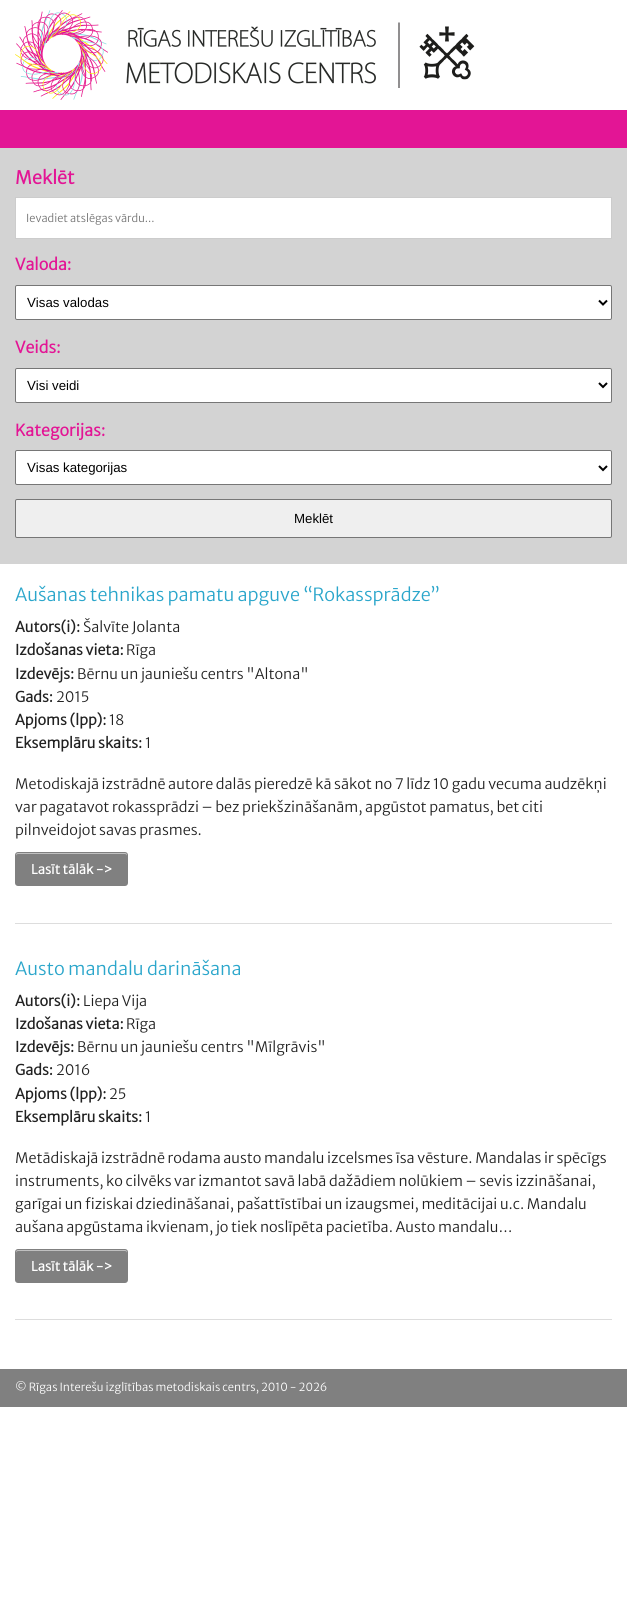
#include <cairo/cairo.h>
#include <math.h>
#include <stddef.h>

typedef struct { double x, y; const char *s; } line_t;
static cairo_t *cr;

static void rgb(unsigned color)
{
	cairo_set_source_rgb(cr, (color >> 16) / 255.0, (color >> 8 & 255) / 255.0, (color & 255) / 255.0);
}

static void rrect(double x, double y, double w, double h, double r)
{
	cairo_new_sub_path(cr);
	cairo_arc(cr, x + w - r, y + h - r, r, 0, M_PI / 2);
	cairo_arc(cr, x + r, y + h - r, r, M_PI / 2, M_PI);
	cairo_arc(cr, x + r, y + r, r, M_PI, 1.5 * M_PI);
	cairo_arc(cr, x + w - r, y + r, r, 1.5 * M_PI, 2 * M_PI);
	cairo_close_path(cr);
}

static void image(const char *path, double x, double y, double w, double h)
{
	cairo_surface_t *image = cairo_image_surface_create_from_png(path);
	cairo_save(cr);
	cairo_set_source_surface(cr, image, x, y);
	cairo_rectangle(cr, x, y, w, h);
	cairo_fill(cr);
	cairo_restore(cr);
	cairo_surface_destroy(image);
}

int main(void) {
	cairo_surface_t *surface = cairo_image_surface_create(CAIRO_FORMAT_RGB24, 627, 1609);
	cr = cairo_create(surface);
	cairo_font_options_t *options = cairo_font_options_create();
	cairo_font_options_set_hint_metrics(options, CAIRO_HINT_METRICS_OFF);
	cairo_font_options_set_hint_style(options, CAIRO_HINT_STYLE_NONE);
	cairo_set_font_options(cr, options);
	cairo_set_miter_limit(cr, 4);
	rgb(0xffffff);
	cairo_paint(cr);
	image("img/1.png", 15, 10, 460, 90);
	rgb(0xe31595);
	cairo_rectangle(cr, 0, 110, 627, 38);
	cairo_fill(cr);
	rgb(0xd3d3d3);
	cairo_rectangle(cr, 0, 148, 627, 416);
	cairo_fill(cr);
	rgb(0xffffff);
	cairo_rectangle(cr, 15.5, 197.5, 596, 41);
	cairo_fill_preserve(cr);
	rgb(0xcccccc);
	cairo_set_line_width(cr, 1);
	cairo_stroke(cr);
	rgb(0xffffff);
	rrect(15.5, 285.5, 596, 34, 1.5);
	cairo_fill_preserve(cr);
	rgb(0x767676);
	cairo_stroke(cr);
	cairo_new_path(cr);
	cairo_move_to(cr, 599, 300.5);
	cairo_line_to(cr, 603, 304.5);
	cairo_line_to(cr, 607, 300.5);
	rgb(0x000000);
	cairo_set_line_width(cr, 2);
	cairo_stroke(cr);
	rgb(0xffffff);
	rrect(15.5, 368.5, 596, 34, 1.5);
	cairo_fill_preserve(cr);
	rgb(0x767676);
	cairo_set_line_width(cr, 1);
	cairo_stroke(cr);
	cairo_new_path(cr);
	cairo_move_to(cr, 599, 383);
	cairo_line_to(cr, 603, 387);
	cairo_line_to(cr, 607, 383);
	rgb(0x000000);
	cairo_set_line_width(cr, 2);
	cairo_stroke(cr);
	rgb(0xffffff);
	rrect(15.5, 450.5, 596, 34, 1.5);
	cairo_fill_preserve(cr);
	rgb(0x767676);
	cairo_set_line_width(cr, 1);
	cairo_stroke(cr);
	cairo_new_path(cr);
	cairo_move_to(cr, 599, 466);
	cairo_line_to(cr, 603, 470);
	cairo_line_to(cr, 607, 466);
	rgb(0x000000);
	cairo_set_line_width(cr, 2);
	cairo_stroke(cr);
	rgb(0xefefef);
	rrect(15.5, 499.5, 596, 38, 1.5);
	cairo_fill_preserve(cr);
	rgb(0x767676);
	cairo_set_line_width(cr, 1);
	cairo_stroke(cr);
	rgb(0x808080);
	rrect(15, 852, 113, 34, 3);
	cairo_fill(cr);
	rgb(0xc0c0c0);
	cairo_new_path(cr);
	cairo_move_to(cr, 18, 854);
	cairo_line_to(cr, 125, 854);
	cairo_curve_to(cr, 126, 854, 127, 855, 127, 856);
	cairo_curve_to(cr, 127, 855, 127, 853, 125, 853);
	cairo_line_to(cr, 18, 853);
	cairo_curve_to(cr, 16, 853, 16, 855, 16, 856);
	cairo_curve_to(cr, 16, 855, 17, 854, 18, 854);
	cairo_close_path(cr);
	cairo_fill(cr);
	rgb(0xdddddd);
	cairo_rectangle(cr, 15, 923, 597, 1);
	cairo_fill(cr);
	rgb(0x808080);
	rrect(15, 1249, 113, 34, 3);
	cairo_fill(cr);
	rgb(0xc0c0c0);
	cairo_new_path(cr);
	cairo_move_to(cr, 18, 1251);
	cairo_line_to(cr, 125, 1251);
	cairo_curve_to(cr, 126, 1251, 127, 1252, 127, 1253);
	cairo_curve_to(cr, 127, 1252, 127, 1250, 125, 1250);
	cairo_line_to(cr, 18, 1250);
	cairo_curve_to(cr, 16, 1250, 16, 1252, 16, 1253);
	cairo_curve_to(cr, 16, 1252, 17, 1251, 18, 1251);
	cairo_close_path(cr);
	cairo_fill(cr);
	rgb(0xdddddd);
	cairo_rectangle(cr, 15, 1319, 597, 1);
	cairo_fill(cr);
	rgb(0x808080);
	cairo_rectangle(cr, 0, 1369, 627, 38);
	cairo_fill(cr);
	cairo_select_font_face(cr, "Merriweather Sans", CAIRO_FONT_SLANT_NORMAL, CAIRO_FONT_WEIGHT_BOLD);
	cairo_set_font_size(cr, 18);
	rgb(0xe31595);
	cairo_move_to(cr, 15, 184);
	cairo_show_text(cr, "Meklēt");
	cairo_select_font_face(cr, "Merriweather Sans Light", CAIRO_FONT_SLANT_NORMAL, CAIRO_FONT_WEIGHT_NORMAL);
	cairo_set_font_size(cr, 11);
	rgb(0x757575);
	cairo_move_to(cr, 26, 222);
	cairo_show_text(cr, "Ievadiet atslēgas vārdu...");
	cairo_select_font_face(cr, "Merriweather Sans", CAIRO_FONT_SLANT_NORMAL, CAIRO_FONT_WEIGHT_BOLD);
	cairo_set_font_size(cr, 16);
	rgb(0xe31595);
	cairo_move_to(cr, 15, 270);
	cairo_show_text(cr, "Valoda:");
	cairo_select_font_face(cr, "Liberation Sans", CAIRO_FONT_SLANT_NORMAL, CAIRO_FONT_WEIGHT_NORMAL);
	cairo_set_font_size(cr, 13.25);
	rgb(0x000000);
	cairo_move_to(cr, 27, 307);
	cairo_show_text(cr, "Visas valodas");
	cairo_select_font_face(cr, "Merriweather Sans", CAIRO_FONT_SLANT_NORMAL, CAIRO_FONT_WEIGHT_BOLD);
	cairo_set_font_size(cr, 16);
	rgb(0xe31595);
	cairo_move_to(cr, 15, 353);
	cairo_show_text(cr, "Veids:");
	cairo_select_font_face(cr, "Liberation Sans", CAIRO_FONT_SLANT_NORMAL, CAIRO_FONT_WEIGHT_NORMAL);
	cairo_set_font_size(cr, 13.25);
	rgb(0x000000);
	cairo_move_to(cr, 27, 390);
	cairo_show_text(cr, "Visi veidi");
	cairo_select_font_face(cr, "Merriweather Sans", CAIRO_FONT_SLANT_NORMAL, CAIRO_FONT_WEIGHT_BOLD);
	cairo_set_font_size(cr, 16);
	rgb(0xe31595);
	cairo_move_to(cr, 15, 436);
	cairo_show_text(cr, "Kategorijas:");
	cairo_select_font_face(cr, "Liberation Sans", CAIRO_FONT_SLANT_NORMAL, CAIRO_FONT_WEIGHT_NORMAL);
	cairo_set_font_size(cr, 13.25);
	rgb(0x000000);
	cairo_move_to(cr, 27, 472);
	cairo_show_text(cr, "Visas kategorijas");
	cairo_move_to(cr, 294, 523);
	cairo_show_text(cr, "Meklēt");
	cairo_select_font_face(cr, "Merriweather Sans Light", CAIRO_FONT_SLANT_NORMAL, CAIRO_FONT_WEIGHT_NORMAL);
	cairo_set_font_size(cr, 18);
	rgb(0x2ba6cb);
	cairo_move_to(cr, 15, 601);
	cairo_show_text(cr, "Aušanas tehnikas pamatu apguve “Rokassprādze”");
	cairo_select_font_face(cr, "Merriweather Sans", CAIRO_FONT_SLANT_NORMAL, CAIRO_FONT_WEIGHT_BOLD);
	cairo_set_font_size(cr, 14.4);
	rgb(0x222222);
	cairo_move_to(cr, 15, 632);
	cairo_show_text(cr, "Autors(i):");
	cairo_select_font_face(cr, "Merriweather Sans Light", CAIRO_FONT_SLANT_NORMAL, CAIRO_FONT_WEIGHT_NORMAL);
	cairo_move_to(cr, 83, 632);
	cairo_show_text(cr, "Šalvīte Jolanta");
	cairo_select_font_face(cr, "Merriweather Sans", CAIRO_FONT_SLANT_NORMAL, CAIRO_FONT_WEIGHT_BOLD);
	cairo_move_to(cr, 15, 655);
	cairo_show_text(cr, "Izdošanas vieta:");
	cairo_select_font_face(cr, "Merriweather Sans Light", CAIRO_FONT_SLANT_NORMAL, CAIRO_FONT_WEIGHT_NORMAL);
	cairo_move_to(cr, 126, 655);
	cairo_show_text(cr, "Rīga");
	cairo_select_font_face(cr, "Merriweather Sans", CAIRO_FONT_SLANT_NORMAL, CAIRO_FONT_WEIGHT_BOLD);
	cairo_move_to(cr, 15, 679);
	cairo_show_text(cr, "Izdevējs:");
	cairo_select_font_face(cr, "Merriweather Sans Light", CAIRO_FONT_SLANT_NORMAL, CAIRO_FONT_WEIGHT_NORMAL);
	cairo_move_to(cr, 77, 679);
	cairo_show_text(cr, "Bērnu un jauniešu centrs \"Altona\"");
	cairo_select_font_face(cr, "Merriweather Sans", CAIRO_FONT_SLANT_NORMAL, CAIRO_FONT_WEIGHT_BOLD);
	cairo_move_to(cr, 15, 702);
	cairo_show_text(cr, "Gads:");
	cairo_select_font_face(cr, "Merriweather Sans Light", CAIRO_FONT_SLANT_NORMAL, CAIRO_FONT_WEIGHT_NORMAL);
	cairo_move_to(cr, 56, 702);
	cairo_show_text(cr, "2015");
	cairo_select_font_face(cr, "Merriweather Sans", CAIRO_FONT_SLANT_NORMAL, CAIRO_FONT_WEIGHT_BOLD);
	cairo_move_to(cr, 15, 725);
	cairo_show_text(cr, "Apjoms (lpp):");
	cairo_select_font_face(cr, "Merriweather Sans Light", CAIRO_FONT_SLANT_NORMAL, CAIRO_FONT_WEIGHT_NORMAL);
	cairo_move_to(cr, 109, 725);
	cairo_show_text(cr, "18");
	cairo_select_font_face(cr, "Merriweather Sans", CAIRO_FONT_SLANT_NORMAL, CAIRO_FONT_WEIGHT_BOLD);
	cairo_move_to(cr, 15, 748);
	cairo_show_text(cr, "Eksemplāru skaits:");
	cairo_select_font_face(cr, "Merriweather Sans Light", CAIRO_FONT_SLANT_NORMAL, CAIRO_FONT_WEIGHT_NORMAL);
	{
		static const line_t items[] = {
			{145, 748, "1"},
			{15, 789, "Metodiskajā izstrādnē autore dalās pieredzē kā sākot no 7 līdz 10 gadu vecuma audzēkņi"},
			{15, 812, "var pagatavot rokassprādzi – bez priekšzināšanām, apgūstot pamatus, bet citi"},
			{15, 835, "pilnveidojot savas prasmes."},
		};
		for (size_t i = 0; i < sizeof items / sizeof *items; i++) {
			cairo_move_to(cr, items[i].x, items[i].y);
			cairo_show_text(cr, items[i].s);
		}
	}
	cairo_select_font_face(cr, "Merriweather Sans", CAIRO_FONT_SLANT_NORMAL, CAIRO_FONT_WEIGHT_BOLD);
	cairo_set_font_size(cr, 13);
	rgb(0xffffff);
	cairo_move_to(cr, 31, 874);
	cairo_show_text(cr, "Lasīt tālāk ->");
	cairo_select_font_face(cr, "Merriweather Sans Light", CAIRO_FONT_SLANT_NORMAL, CAIRO_FONT_WEIGHT_NORMAL);
	cairo_set_font_size(cr, 18);
	rgb(0x2ba6cb);
	cairo_move_to(cr, 15, 975);
	cairo_show_text(cr, "Austo mandalu darināšana");
	cairo_select_font_face(cr, "Merriweather Sans", CAIRO_FONT_SLANT_NORMAL, CAIRO_FONT_WEIGHT_BOLD);
	cairo_set_font_size(cr, 14.4);
	rgb(0x222222);
	cairo_move_to(cr, 15, 1006);
	cairo_show_text(cr, "Autors(i):");
	cairo_select_font_face(cr, "Merriweather Sans Light", CAIRO_FONT_SLANT_NORMAL, CAIRO_FONT_WEIGHT_NORMAL);
	cairo_move_to(cr, 83, 1006);
	cairo_show_text(cr, "Liepa Vija");
	cairo_select_font_face(cr, "Merriweather Sans", CAIRO_FONT_SLANT_NORMAL, CAIRO_FONT_WEIGHT_BOLD);
	cairo_move_to(cr, 15, 1029);
	cairo_show_text(cr, "Izdošanas vieta:");
	cairo_select_font_face(cr, "Merriweather Sans Light", CAIRO_FONT_SLANT_NORMAL, CAIRO_FONT_WEIGHT_NORMAL);
	cairo_move_to(cr, 126, 1029);
	cairo_show_text(cr, "Rīga");
	cairo_select_font_face(cr, "Merriweather Sans", CAIRO_FONT_SLANT_NORMAL, CAIRO_FONT_WEIGHT_BOLD);
	cairo_move_to(cr, 15, 1052);
	cairo_show_text(cr, "Izdevējs:");
	cairo_select_font_face(cr, "Merriweather Sans Light", CAIRO_FONT_SLANT_NORMAL, CAIRO_FONT_WEIGHT_NORMAL);
	cairo_move_to(cr, 77, 1052);
	cairo_show_text(cr, "Bērnu un jauniešu centrs \"Mīlgrāvis\"");
	cairo_select_font_face(cr, "Merriweather Sans", CAIRO_FONT_SLANT_NORMAL, CAIRO_FONT_WEIGHT_BOLD);
	cairo_move_to(cr, 15, 1075);
	cairo_show_text(cr, "Gads:");
	cairo_select_font_face(cr, "Merriweather Sans Light", CAIRO_FONT_SLANT_NORMAL, CAIRO_FONT_WEIGHT_NORMAL);
	cairo_move_to(cr, 56, 1075);
	cairo_show_text(cr, "2016");
	cairo_select_font_face(cr, "Merriweather Sans", CAIRO_FONT_SLANT_NORMAL, CAIRO_FONT_WEIGHT_BOLD);
	cairo_move_to(cr, 15, 1099);
	cairo_show_text(cr, "Apjoms (lpp):");
	cairo_select_font_face(cr, "Merriweather Sans Light", CAIRO_FONT_SLANT_NORMAL, CAIRO_FONT_WEIGHT_NORMAL);
	cairo_move_to(cr, 109, 1099);
	cairo_show_text(cr, "25");
	cairo_select_font_face(cr, "Merriweather Sans", CAIRO_FONT_SLANT_NORMAL, CAIRO_FONT_WEIGHT_BOLD);
	cairo_move_to(cr, 15, 1122);
	cairo_show_text(cr, "Eksemplāru skaits:");
	cairo_select_font_face(cr, "Merriweather Sans Light", CAIRO_FONT_SLANT_NORMAL, CAIRO_FONT_WEIGHT_NORMAL);
	{
		static const line_t items[] = {
			{145, 1122, "1"},
			{15, 1163, "Metādiskajā izstrādnē rodama austo mandalu izcelsmes īsa vēsture. Mandalas ir spēcīgs"},
			{15, 1186, "instruments, ko cilvēks var izmantot savā labā dažādiem nolūkiem – sevis izzināšanai,"},
			{15, 1209, "garīgai un fiziskai dziedināšanai, pašattīstībai un izaugsmei, meditācijai u.c. Mandalu"},
			{15, 1232, "aušana apgūstama ikvienam, jo tiek noslīpēta pacietība. Austo mandalu…"},
		};
		for (size_t i = 0; i < sizeof items / sizeof *items; i++) {
			cairo_move_to(cr, items[i].x, items[i].y);
			cairo_show_text(cr, items[i].s);
		}
	}
	cairo_select_font_face(cr, "Merriweather Sans", CAIRO_FONT_SLANT_NORMAL, CAIRO_FONT_WEIGHT_BOLD);
	cairo_set_font_size(cr, 13);
	rgb(0xffffff);
	cairo_move_to(cr, 31, 1271);
	cairo_show_text(cr, "Lasīt tālāk ->");
	cairo_select_font_face(cr, "Merriweather Sans Light", CAIRO_FONT_SLANT_NORMAL, CAIRO_FONT_WEIGHT_NORMAL);
	cairo_set_font_size(cr, 11.2);
	cairo_move_to(cr, 15, 1391);
	cairo_show_text(cr, "© Rīgas Interešu izglītības metodiskais centrs, 2010 - 2026");
	cairo_surface_write_to_png(surface, "page.png");
	cairo_font_options_destroy(options);
	cairo_destroy(cr);
	cairo_surface_destroy(surface);
	return 0;
}
